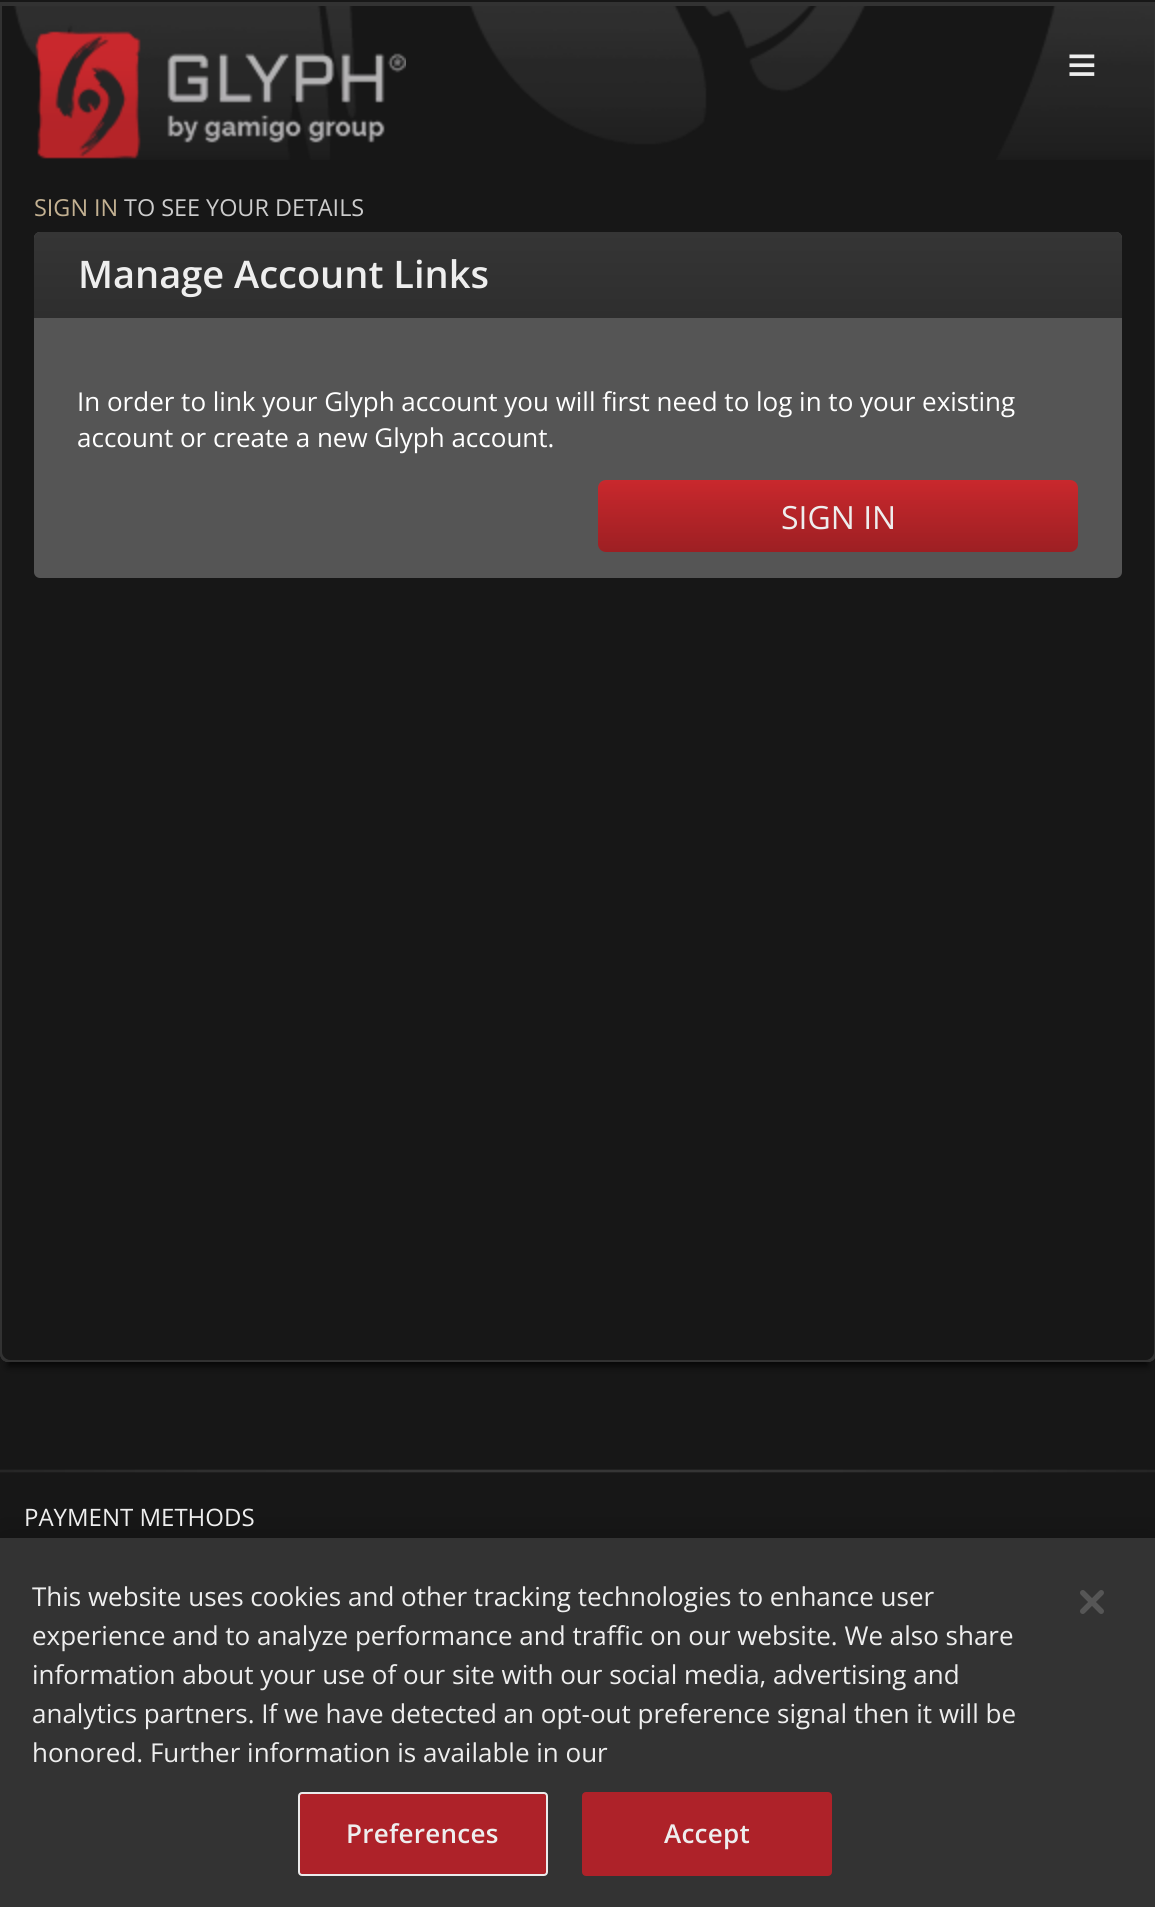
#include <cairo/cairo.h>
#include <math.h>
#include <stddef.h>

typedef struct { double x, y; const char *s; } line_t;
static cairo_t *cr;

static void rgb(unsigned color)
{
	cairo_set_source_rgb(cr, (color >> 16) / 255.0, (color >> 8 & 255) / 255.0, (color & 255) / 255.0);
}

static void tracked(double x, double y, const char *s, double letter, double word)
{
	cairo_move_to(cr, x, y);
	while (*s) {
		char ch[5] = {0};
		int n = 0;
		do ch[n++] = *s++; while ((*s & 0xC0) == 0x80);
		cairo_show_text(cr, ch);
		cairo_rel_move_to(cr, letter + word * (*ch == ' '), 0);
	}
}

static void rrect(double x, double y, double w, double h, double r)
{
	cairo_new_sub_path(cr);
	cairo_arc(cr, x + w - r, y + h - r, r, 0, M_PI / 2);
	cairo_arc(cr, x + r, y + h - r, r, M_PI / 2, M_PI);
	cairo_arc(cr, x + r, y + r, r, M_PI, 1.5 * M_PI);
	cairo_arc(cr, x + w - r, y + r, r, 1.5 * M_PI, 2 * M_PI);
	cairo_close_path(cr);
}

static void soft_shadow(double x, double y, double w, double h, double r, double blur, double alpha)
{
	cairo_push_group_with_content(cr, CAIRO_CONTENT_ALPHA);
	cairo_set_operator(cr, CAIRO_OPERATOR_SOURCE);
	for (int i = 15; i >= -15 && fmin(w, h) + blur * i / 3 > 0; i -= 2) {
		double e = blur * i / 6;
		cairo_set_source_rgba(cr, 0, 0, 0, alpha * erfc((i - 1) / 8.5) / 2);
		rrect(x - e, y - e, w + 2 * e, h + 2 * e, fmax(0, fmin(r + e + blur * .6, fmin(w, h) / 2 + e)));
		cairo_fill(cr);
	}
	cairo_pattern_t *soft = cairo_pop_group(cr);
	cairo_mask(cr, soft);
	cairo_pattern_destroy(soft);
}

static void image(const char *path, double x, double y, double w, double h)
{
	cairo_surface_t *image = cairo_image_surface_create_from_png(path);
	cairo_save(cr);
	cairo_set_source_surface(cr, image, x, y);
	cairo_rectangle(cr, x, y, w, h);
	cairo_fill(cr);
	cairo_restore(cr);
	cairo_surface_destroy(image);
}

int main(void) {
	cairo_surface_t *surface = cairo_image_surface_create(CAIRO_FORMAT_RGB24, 1155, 1907);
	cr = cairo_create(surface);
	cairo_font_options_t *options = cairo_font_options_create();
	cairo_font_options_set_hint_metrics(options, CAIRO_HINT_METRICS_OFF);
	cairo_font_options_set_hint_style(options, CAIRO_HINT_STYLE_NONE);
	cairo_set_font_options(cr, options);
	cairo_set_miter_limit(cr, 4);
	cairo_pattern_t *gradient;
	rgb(0x171717);
	cairo_paint(cr);
	image("img/1.png", 13, 6, 1141, 154);
	cairo_save(cr);
	cairo_rectangle(cr, 0, 2, 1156, 188);
	cairo_clip(cr);
	rgb(0x323232);
	cairo_set_fill_rule(cr, CAIRO_FILL_RULE_EVEN_ODD);
	cairo_new_path(cr);
	cairo_move_to(cr, -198, -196);
	cairo_line_to(cr, 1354, -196);
	cairo_line_to(cr, 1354, 388);
	cairo_line_to(cr, -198, 388);
	cairo_close_path(cr);
	cairo_move_to(cr, 2, 6);
	cairo_line_to(cr, 1154, 6);
	cairo_line_to(cr, 1154, 190);
	cairo_line_to(cr, 2, 190);
	cairo_close_path(cr);
	cairo_fill(cr);
	cairo_restore(cr);
	image("img/2.png", 35, 31, 371, 128);
	cairo_save(cr);
	cairo_set_fill_rule(cr, CAIRO_FILL_RULE_EVEN_ODD);
	cairo_new_path(cr);
	cairo_move_to(cr, 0, 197);
	cairo_line_to(cr, 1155, 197);
	cairo_line_to(cr, 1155, 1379);
	cairo_line_to(cr, 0, 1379);
	cairo_close_path(cr);
	cairo_move_to(cr, 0, 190);
	cairo_line_to(cr, 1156, 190);
	cairo_line_to(cr, 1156, 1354);
	cairo_curve_to(cr, 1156, 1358.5, 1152.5, 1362, 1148, 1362);
	cairo_line_to(cr, 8, 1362);
	cairo_curve_to(cr, 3.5, 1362, 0, 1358.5, 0, 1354);
	cairo_close_path(cr);
	cairo_clip(cr);
	rgb(0x000000);
	soft_shadow(8, 210, 1140, 1156, 0, 4, 0.75);
	cairo_restore(cr);
	rgb(0x323232);
	cairo_new_path(cr);
	cairo_move_to(cr, 1, 1358);
	cairo_curve_to(cr, 2, 1360, 5, 1362, 8, 1362);
	cairo_line_to(cr, 1148, 1362);
	cairo_curve_to(cr, 1152, 1362, 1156, 1358, 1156, 1354);
	cairo_line_to(cr, 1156, 190);
	cairo_line_to(cr, 1154, 190);
	cairo_line_to(cr, 1154, 1352);
	cairo_curve_to(cr, 1154, 1356, 1150, 1360, 1146, 1360);
	cairo_line_to(cr, 6, 1360);
	cairo_curve_to(cr, 4, 1360, 3, 1359, 1, 1358);
	cairo_close_path(cr);
	cairo_fill(cr);
	cairo_new_path(cr);
	cairo_move_to(cr, 0, 190);
	cairo_line_to(cr, 0, 1354);
	cairo_curve_to(cr, 0, 1358, 4, 1362, 8, 1362);
	cairo_line_to(cr, 1148, 1362);
	cairo_curve_to(cr, 1151, 1362, 1154, 1360, 1155, 1358);
	cairo_curve_to(cr, 1153, 1359, 1152, 1360, 1150, 1360);
	cairo_line_to(cr, 10, 1360);
	cairo_curve_to(cr, 6, 1360, 2, 1356, 2, 1352);
	cairo_line_to(cr, 2, 190);
	cairo_close_path(cr);
	cairo_fill(cr);
	cairo_new_path(cr);
	cairo_move_to(cr, 0, 1352);
	cairo_line_to(cr, 0, 1354);
	cairo_curve_to(cr, 0, 1358, 4, 1362, 8, 1362);
	cairo_line_to(cr, 1148, 1362);
	cairo_curve_to(cr, 1152, 1362, 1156, 1358, 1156, 1354);
	cairo_line_to(cr, 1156, 1352);
	cairo_curve_to(cr, 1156, 1356, 1152, 1360, 1148, 1360);
	cairo_line_to(cr, 8, 1360);
	cairo_curve_to(cr, 4, 1360, 0, 1356, 0, 1352);
	cairo_close_path(cr);
	cairo_fill(cr);
	rgb(0x555555);
	rrect(34, 232, 1088, 346, 6);
	cairo_fill(cr);
	gradient = cairo_pattern_create_linear(578, 232, 578, 318);
	cairo_pattern_add_color_stop_rgba(gradient, 0, 0.208, 0.208, 0.208, 1);
	cairo_pattern_add_color_stop_rgba(gradient, 1, 0.18, 0.18, 0.18, 1);
	cairo_set_source(cr, gradient);
	cairo_pattern_destroy(gradient);
	cairo_new_path(cr);
	cairo_move_to(cr, 40, 232);
	cairo_line_to(cr, 1116, 232);
	cairo_curve_to(cr, 1119.5, 232, 1122, 234.5, 1122, 238);
	cairo_line_to(cr, 1122, 318);
	cairo_line_to(cr, 34, 318);
	cairo_line_to(cr, 34, 238);
	cairo_curve_to(cr, 34, 234.5, 36.5, 232, 40, 232);
	cairo_close_path(cr);
	cairo_fill(cr);
	gradient = cairo_pattern_create_linear(838, 480, 838, 552);
	cairo_pattern_add_color_stop_rgba(gradient, 0, 0.788, 0.157, 0.176, 1);
	cairo_pattern_add_color_stop_rgba(gradient, 1, 0.616, 0.122, 0.137, 1);
	cairo_set_source(cr, gradient);
	cairo_pattern_destroy(gradient);
	rrect(598, 480, 480, 72, 8);
	cairo_fill(cr);
	image("img/3.png", 0, 1469, 1155, 4);
	rgb(0x000000);
	soft_shadow(0, 1538, 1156, 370, 0, 18, 0.2);
	rgb(0x333333);
	cairo_rectangle(cr, 0, 1538, 1155, 369);
	cairo_fill(cr);
	rgb(0xae2229);
	rrect(299, 1793, 248, 82, 3);
	cairo_fill_preserve(cr);
	rgb(0xebebeb);
	cairo_stroke(cr);
	rgb(0xae2229);
	rrect(583, 1793, 248, 82, 3);
	cairo_fill_preserve(cr);
	cairo_stroke(cr);
	image("img/4.png", 1080, 1590, 24, 24);
	cairo_select_font_face(cr, "Liberation Sans", CAIRO_FONT_SLANT_NORMAL, CAIRO_FONT_WEIGHT_BOLD);
	cairo_set_font_size(cr, 51);
	rgb(0xeeeeee);
	cairo_move_to(cr, 1067, 82);
	cairo_show_text(cr, "≡");
	cairo_select_font_face(cr, "Open Sans", CAIRO_FONT_SLANT_NORMAL, CAIRO_FONT_WEIGHT_NORMAL);
	cairo_set_font_size(cr, 23.4);
	rgb(0xc3b192);
	cairo_move_to(cr, 34, 216);
	cairo_show_text(cr, "SIGN IN");
	rgb(0xcccccc);
	cairo_move_to(cr, 124, 216);
	cairo_show_text(cr, "TO SEE YOUR DETAILS");
	cairo_select_font_face(cr, "Open Sans SemiBold", CAIRO_FONT_SLANT_NORMAL, CAIRO_FONT_WEIGHT_NORMAL);
	cairo_set_font_size(cr, 38);
	rgb(0xeeeeee);
	cairo_move_to(cr, 78, 288);
	cairo_show_text(cr, "Manage Account Links");
	cairo_select_font_face(cr, "Open Sans", CAIRO_FONT_SLANT_NORMAL, CAIRO_FONT_WEIGHT_NORMAL);
	cairo_set_font_size(cr, 26);
	rgb(0xffffff);
	cairo_move_to(cr, 77, 411);
	cairo_show_text(cr, "In order to link your Glyph account you will first need to log in to your existing");
	cairo_move_to(cr, 77, 447);
	cairo_show_text(cr, "account or create a new Glyph account.");
	cairo_set_font_size(cr, 32);
	rgb(0xeeeeee);
	cairo_move_to(cr, 781, 529);
	cairo_show_text(cr, "SIGN IN");
	cairo_set_font_size(cr, 24);
	cairo_move_to(cr, 24, 1526);
	cairo_show_text(cr, "PAYMENT METHODS");
	cairo_set_font_size(cr, 26);
	{
		static const line_t items[] = {
			{32, 1606, "This website uses cookies and other tracking technologies to enhance user"},
			{32, 1645, "experience and to analyze performance and traffic on our website. We also share"},
			{32, 1684, "information about your use of our site with our social media, advertising and"},
			{32, 1723, "analytics partners. If we have detected an opt-out preference signal then it will be"},
			{32, 1762, "honored. Further information is available in our"},
		};
		for (size_t i = 0; i < sizeof items / sizeof *items; i++) {
			cairo_move_to(cr, items[i].x, items[i].y);
			cairo_show_text(cr, items[i].s);
		}
	}
	cairo_select_font_face(cr, "Open Sans SemiBold", CAIRO_FONT_SLANT_NORMAL, CAIRO_FONT_WEIGHT_NORMAL);
	tracked(346, 1843, "Preferences", 0.25, 0);
	tracked(664, 1843, "Accept", 0.25, 0);
	cairo_surface_write_to_png(surface, "page.png");
	cairo_font_options_destroy(options);
	cairo_destroy(cr);
	cairo_surface_destroy(surface);
	return 0;
}
